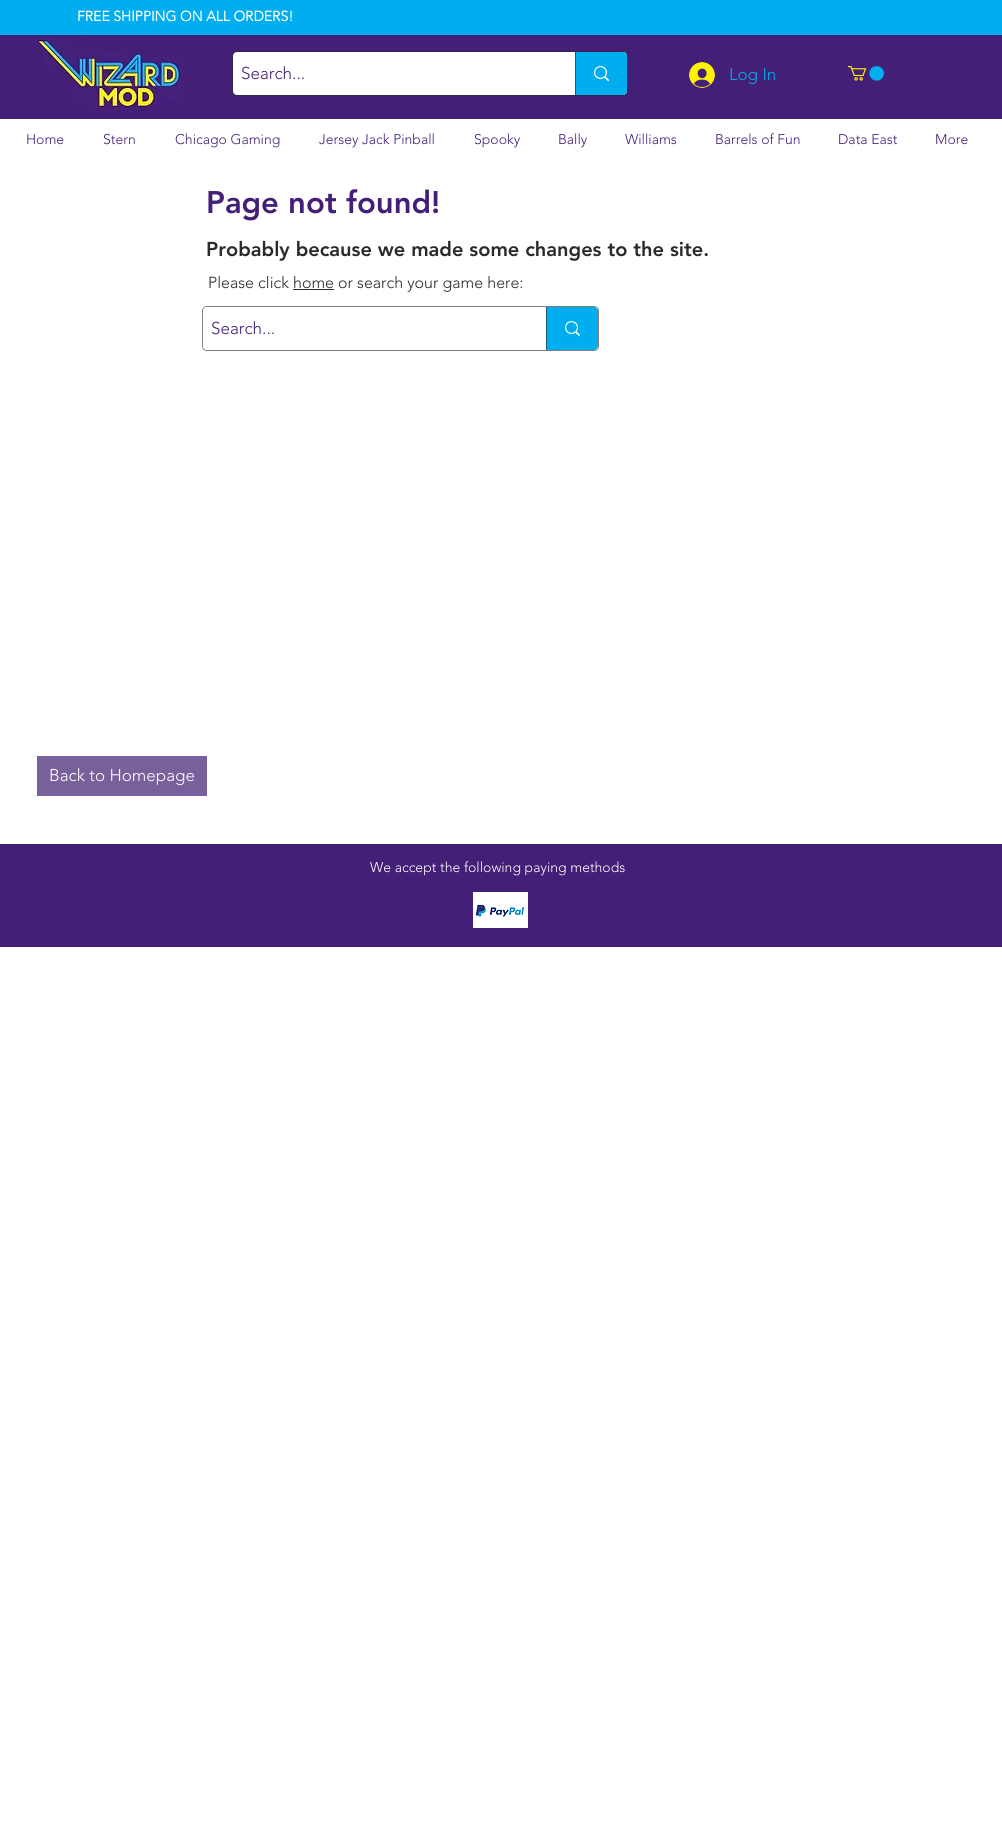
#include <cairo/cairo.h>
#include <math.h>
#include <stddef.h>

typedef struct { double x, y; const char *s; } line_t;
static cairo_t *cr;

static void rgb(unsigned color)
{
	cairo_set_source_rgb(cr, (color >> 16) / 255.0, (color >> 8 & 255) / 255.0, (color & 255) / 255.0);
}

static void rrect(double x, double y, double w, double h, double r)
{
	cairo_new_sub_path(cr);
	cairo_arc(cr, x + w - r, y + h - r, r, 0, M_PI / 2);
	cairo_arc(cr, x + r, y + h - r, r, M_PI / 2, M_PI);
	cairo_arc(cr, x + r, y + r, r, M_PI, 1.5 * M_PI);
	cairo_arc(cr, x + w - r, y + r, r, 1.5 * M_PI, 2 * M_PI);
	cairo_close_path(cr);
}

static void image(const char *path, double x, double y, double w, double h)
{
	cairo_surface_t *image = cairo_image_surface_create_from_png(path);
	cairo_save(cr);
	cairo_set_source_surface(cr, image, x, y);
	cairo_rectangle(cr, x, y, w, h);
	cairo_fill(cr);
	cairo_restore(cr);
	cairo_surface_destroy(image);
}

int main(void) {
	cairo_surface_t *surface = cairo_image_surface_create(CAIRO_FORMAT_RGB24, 1002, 1840);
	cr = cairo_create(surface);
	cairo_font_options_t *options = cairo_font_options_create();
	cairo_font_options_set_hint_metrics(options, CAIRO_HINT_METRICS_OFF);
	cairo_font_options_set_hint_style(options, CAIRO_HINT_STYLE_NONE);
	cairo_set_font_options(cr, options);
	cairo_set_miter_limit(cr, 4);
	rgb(0xffffff);
	cairo_paint(cr);
	rgb(0x00adee);
	cairo_rectangle(cr, 0, 0, 1002, 35);
	cairo_fill(cr);
	rgb(0x441f78);
	cairo_rectangle(cr, 0, 35, 1002, 84);
	cairo_fill(cr);
	image("img/1.png", 37, 37, 146, 73);
	rrect(232.5, 51.5, 395, 44, 4.5);
	rgb(0x342649);
	cairo_set_line_width(cr, 1);
	cairo_stroke(cr);
	rgb(0xffffff);
	rrect(233, 52, 394, 43, 4);
	cairo_fill(cr);
	rgb(0x00adee);
	cairo_new_path(cr);
	cairo_move_to(cr, 575, 52);
	cairo_line_to(cr, 623, 52);
	cairo_curve_to(cr, 625, 52, 627, 54, 627, 56);
	cairo_line_to(cr, 627, 91);
	cairo_curve_to(cr, 627, 93, 625, 95, 623, 95);
	cairo_line_to(cr, 575, 95);
	cairo_close_path(cr);
	cairo_fill(cr);
	rgb(0x195e78);
	cairo_rectangle(cr, 575, 52, 1, 43);
	cairo_fill(cr);
	image("img/2.png", 594, 66, 15, 15);
	image("img/3.png", 689, 62, 26, 26);
	image("img/4.png", 848, 66, 36, 15);
	rgb(0x2a2a2a);
	cairo_rectangle(cr, 293, 289, 41, 1);
	cairo_fill(cr);
	rrect(202.5, 306.5, 396, 44, 4.5);
	rgb(0x7f7f7f);
	cairo_stroke(cr);
	rgb(0xffffff);
	rrect(203, 307, 395, 43, 4);
	cairo_fill(cr);
	rgb(0x00adee);
	cairo_new_path(cr);
	cairo_move_to(cr, 546, 307);
	cairo_line_to(cr, 594, 307);
	cairo_curve_to(cr, 596, 307, 598, 309, 598, 311);
	cairo_line_to(cr, 598, 346);
	cairo_curve_to(cr, 598, 348, 596, 350, 594, 350);
	cairo_line_to(cr, 546, 350);
	cairo_close_path(cr);
	cairo_fill(cr);
	rgb(0x195e78);
	cairo_rectangle(cr, 546, 307, 1, 43);
	cairo_fill(cr);
	image("img/5.png", 565, 321, 15, 16);
	rgb(0x78619a);
	cairo_rectangle(cr, 37, 756, 170, 40);
	cairo_fill(cr);
	rgb(0x441f78);
	cairo_rectangle(cr, 0, 844, 1002, 103);
	cairo_fill(cr);
	image("img/6.png", 473, 892, 55, 36);
	cairo_select_font_face(cr, "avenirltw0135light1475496", CAIRO_FONT_SLANT_NORMAL, CAIRO_FONT_WEIGHT_BOLD);
	cairo_set_font_size(cr, 14);
	rgb(0xffffff);
	cairo_move_to(cr, 77, 21);
	cairo_show_text(cr, "FREE SHIPPING ON ALL ORDERS!");
	cairo_select_font_face(cr, "avenirltw0135light1475496 Light", CAIRO_FONT_SLANT_NORMAL, CAIRO_FONT_WEIGHT_NORMAL);
	cairo_set_font_size(cr, 17);
	rgb(0x441f78);
	cairo_move_to(cr, 241, 79);
	cairo_show_text(cr, "Search...");
	rgb(0x00adee);
	cairo_move_to(cr, 729, 80);
	cairo_show_text(cr, "Log In");
	cairo_set_font_size(cr, 14);
	rgb(0x441f78);
	{
		static const line_t items[] = {
			{26, 144, "Home"},
			{103, 144, "Stern"},
			{175, 144, "Chicago Gaming"},
			{319, 144, "Jersey Jack Pinball"},
			{474, 144, "Spooky"},
			{558, 144, "Bally"},
			{625, 144, "Williams"},
			{715, 144, "Barrels of Fun"},
			{838, 144, "Data East"},
			{935, 144, "More"},
		};
		for (size_t i = 0; i < sizeof items / sizeof *items; i++) {
			cairo_move_to(cr, items[i].x, items[i].y);
			cairo_show_text(cr, items[i].s);
		}
	}
	cairo_select_font_face(cr, "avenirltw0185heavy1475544 Black", CAIRO_FONT_SLANT_NORMAL, CAIRO_FONT_WEIGHT_NORMAL);
	cairo_set_font_size(cr, 31);
	cairo_move_to(cr, 206, 213);
	cairo_show_text(cr, "Page not found!");
	cairo_set_font_size(cr, 20);
	rgb(0x2a2a2a);
	cairo_move_to(cr, 206, 256);
	cairo_show_text(cr, "Probably because we made some changes to the site.");
	cairo_select_font_face(cr, "avenirltw0135light1475496 Light", CAIRO_FONT_SLANT_NORMAL, CAIRO_FONT_WEIGHT_NORMAL);
	cairo_set_font_size(cr, 16);
	cairo_move_to(cr, 208, 288);
	cairo_show_text(cr, "Please click home or search your game here:");
	cairo_set_font_size(cr, 17);
	rgb(0x441f78);
	cairo_move_to(cr, 211, 334);
	cairo_show_text(cr, "Search...");
	rgb(0xffffff);
	cairo_move_to(cr, 49, 781);
	cairo_show_text(cr, "Back to Homepage");
	cairo_set_font_size(cr, 14);
	cairo_move_to(cr, 370, 872);
	cairo_show_text(cr, "We accept the following paying methods");
	cairo_surface_write_to_png(surface, "page.png");
	cairo_font_options_destroy(options);
	cairo_destroy(cr);
	cairo_surface_destroy(surface);
	return 0;
}
